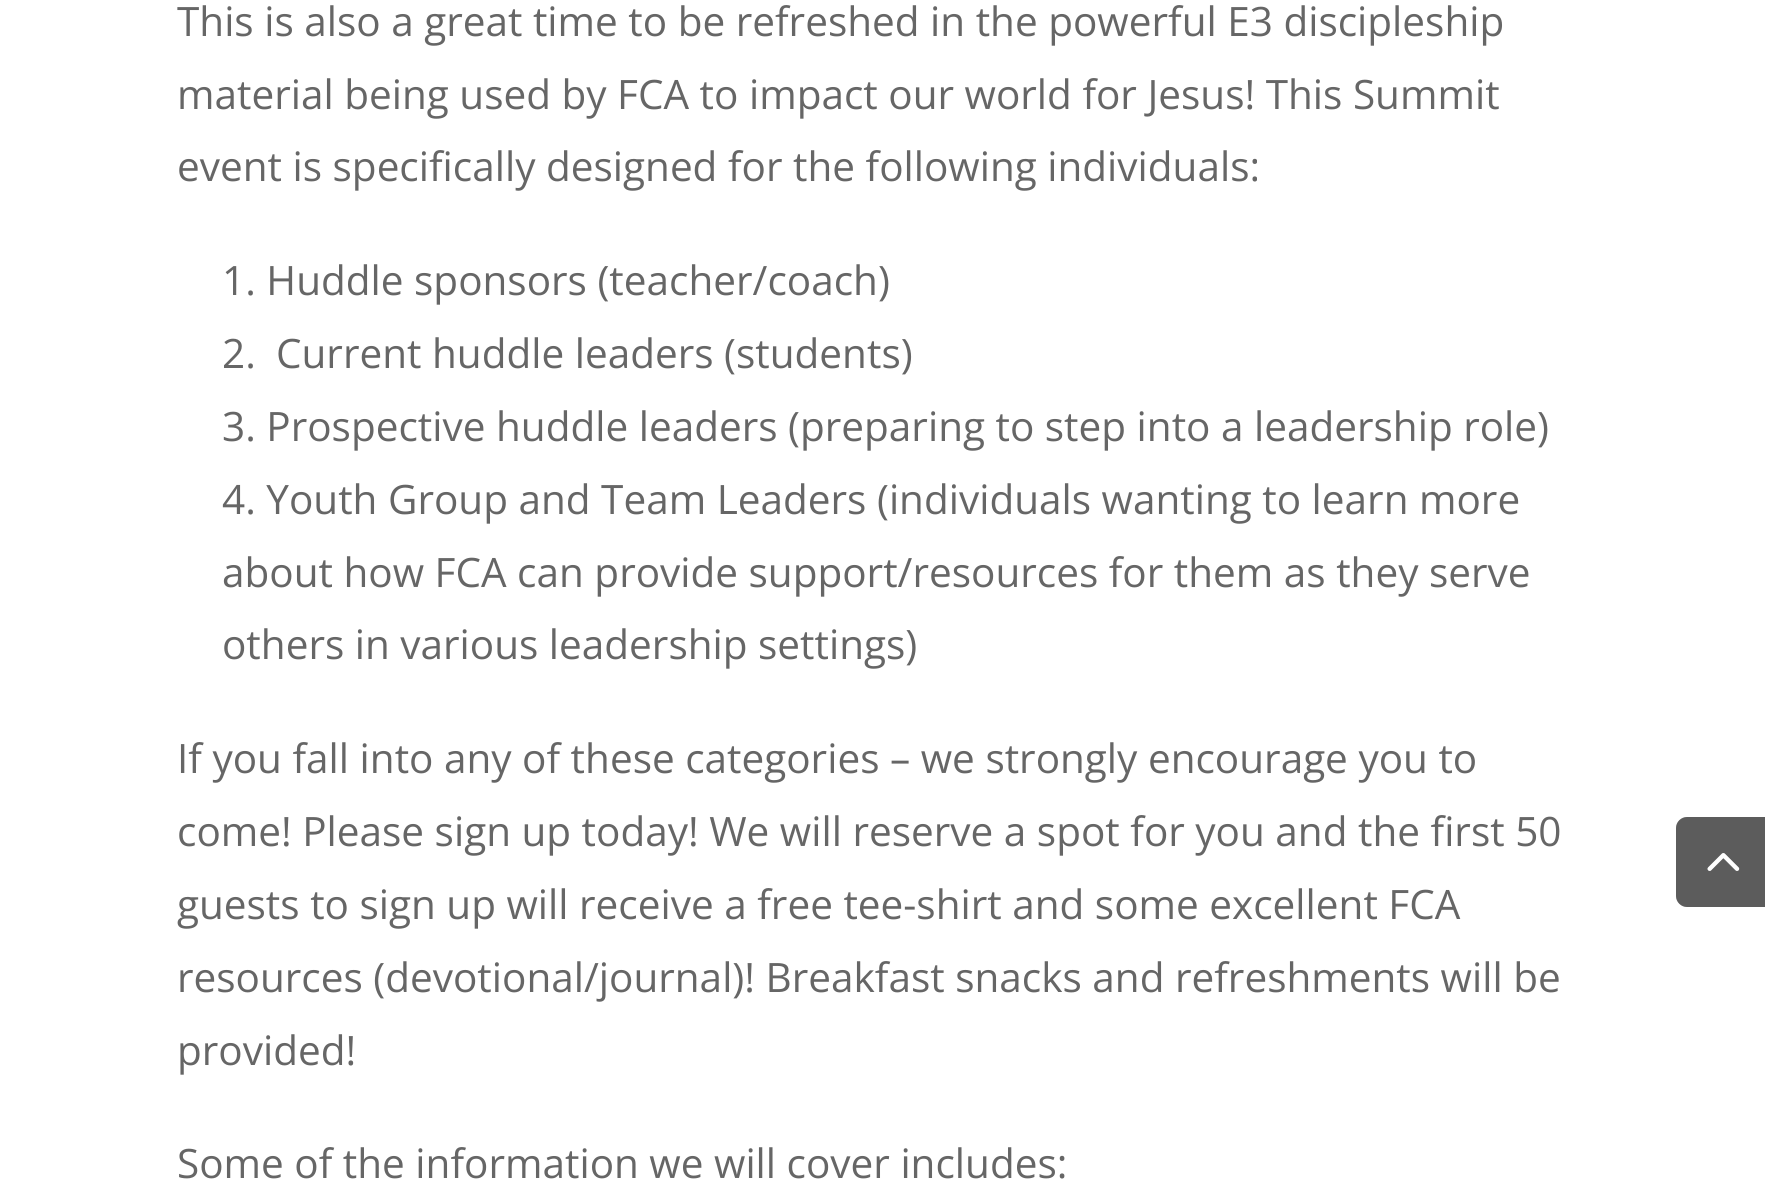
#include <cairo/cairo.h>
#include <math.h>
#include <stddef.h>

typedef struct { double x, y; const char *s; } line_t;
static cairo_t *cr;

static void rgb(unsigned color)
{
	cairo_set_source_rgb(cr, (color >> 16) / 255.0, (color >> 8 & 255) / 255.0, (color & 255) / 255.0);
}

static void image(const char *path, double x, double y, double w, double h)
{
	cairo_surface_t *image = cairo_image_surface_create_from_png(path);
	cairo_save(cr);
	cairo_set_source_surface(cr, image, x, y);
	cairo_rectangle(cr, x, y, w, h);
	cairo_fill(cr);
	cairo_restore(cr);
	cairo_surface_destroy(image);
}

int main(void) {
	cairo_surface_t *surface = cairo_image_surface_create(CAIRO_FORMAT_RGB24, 1765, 1186);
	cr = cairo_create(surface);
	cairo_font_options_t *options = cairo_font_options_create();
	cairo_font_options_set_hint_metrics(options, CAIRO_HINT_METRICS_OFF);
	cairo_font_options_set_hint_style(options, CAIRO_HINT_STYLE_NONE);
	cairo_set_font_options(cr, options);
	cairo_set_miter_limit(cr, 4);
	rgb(0xffffff);
	cairo_paint(cr);
	rgb(0x999999);
	cairo_new_path(cr);
	cairo_move_to(cr, 1687, 817);
	cairo_line_to(cr, 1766, 817);
	cairo_line_to(cr, 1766, 907);
	cairo_line_to(cr, 1687, 907);
	cairo_curve_to(cr, 1681, 907, 1676, 902, 1676, 896);
	cairo_line_to(cr, 1676, 828);
	cairo_curve_to(cr, 1676, 822, 1681, 817, 1687, 817);
	cairo_close_path(cr);
	cairo_fill(cr);
	image("img/1.png", 1707, 853, 33, 18);
	cairo_set_source_rgba(cr, 0, 0, 0, 0.4);
	cairo_new_path(cr);
	cairo_move_to(cr, 1687, 817);
	cairo_line_to(cr, 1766, 817);
	cairo_line_to(cr, 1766, 907);
	cairo_line_to(cr, 1687, 907);
	cairo_curve_to(cr, 1681, 907, 1676, 902, 1676, 896);
	cairo_line_to(cr, 1676, 828);
	cairo_curve_to(cr, 1676, 822, 1681, 817, 1687, 817);
	cairo_close_path(cr);
	cairo_fill(cr);
	image("img/2.png", 1707, 853, 33, 18);
	cairo_select_font_face(cr, "Open Sans", CAIRO_FONT_SLANT_NORMAL, CAIRO_FONT_WEIGHT_NORMAL);
	cairo_set_font_size(cr, 40.5);
	rgb(0x666666);
	{
		static const line_t items[] = {
			{177, 36, "This is also a great time to be refreshed in the powerful E3 discipleship"},
			{177, 109, "material being used by FCA to impact our world for Jesus! This Summit"},
			{177, 181, "event is specifically designed for the following individuals:"},
			{222, 295, "1. Huddle sponsors (teacher/coach)"},
			{222, 368, "2."},
			{276, 368, "Current huddle leaders (students)"},
			{222, 441, "3. Prospective huddle leaders (preparing to step into a leadership role)"},
			{222, 514, "4. Youth Group and Team Leaders (individuals wanting to learn more"},
			{222, 587, "about how FCA can provide support/resources for them as they serve"},
			{222, 659, "others in various leadership settings)"},
			{177, 773, "If you fall into any of these categories – we strongly encourage you to"},
			{177, 846, "come! Please sign up today! We will reserve a spot for you and the first 50"},
			{177, 919, "guests to sign up will receive a free tee-shirt and some excellent FCA"},
			{177, 992, "resources (devotional/journal)! Breakfast snacks and refreshments will be"},
			{177, 1065, "provided!"},
			{177, 1178, "Some of the information we will cover includes:"},
		};
		for (size_t i = 0; i < sizeof items / sizeof *items; i++) {
			cairo_move_to(cr, items[i].x, items[i].y);
			cairo_show_text(cr, items[i].s);
		}
	}
	cairo_surface_write_to_png(surface, "page.png");
	cairo_font_options_destroy(options);
	cairo_destroy(cr);
	cairo_surface_destroy(surface);
	return 0;
}
